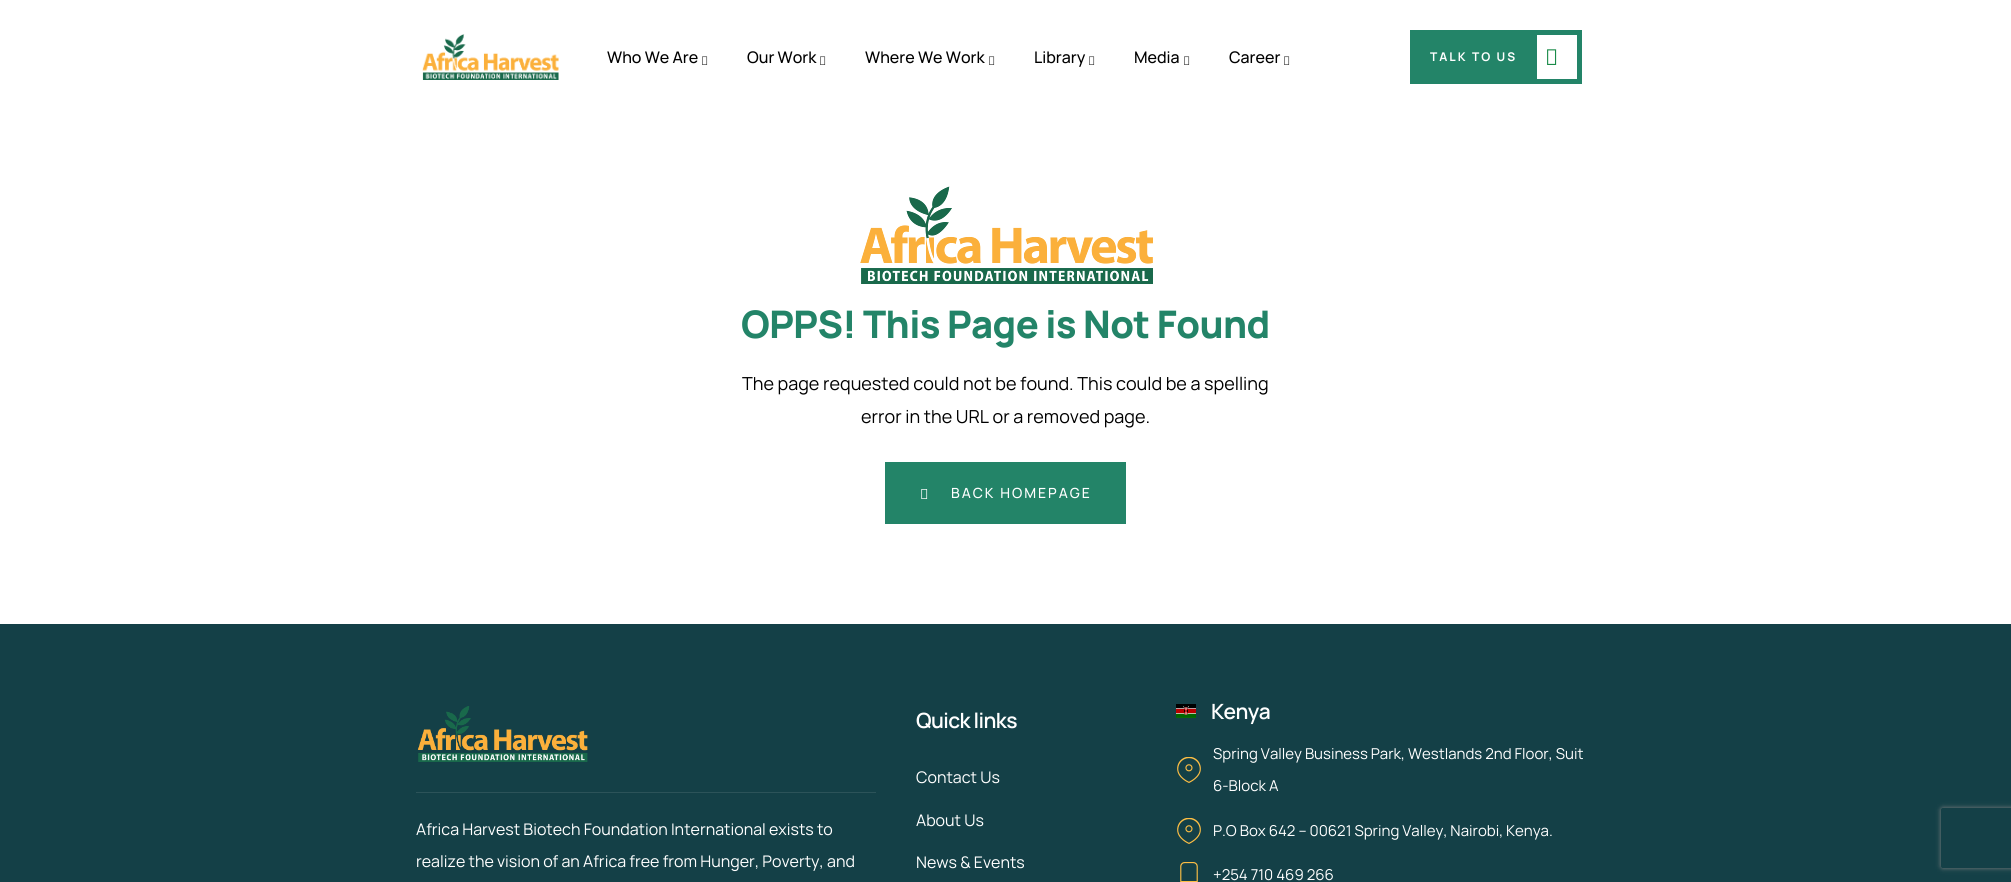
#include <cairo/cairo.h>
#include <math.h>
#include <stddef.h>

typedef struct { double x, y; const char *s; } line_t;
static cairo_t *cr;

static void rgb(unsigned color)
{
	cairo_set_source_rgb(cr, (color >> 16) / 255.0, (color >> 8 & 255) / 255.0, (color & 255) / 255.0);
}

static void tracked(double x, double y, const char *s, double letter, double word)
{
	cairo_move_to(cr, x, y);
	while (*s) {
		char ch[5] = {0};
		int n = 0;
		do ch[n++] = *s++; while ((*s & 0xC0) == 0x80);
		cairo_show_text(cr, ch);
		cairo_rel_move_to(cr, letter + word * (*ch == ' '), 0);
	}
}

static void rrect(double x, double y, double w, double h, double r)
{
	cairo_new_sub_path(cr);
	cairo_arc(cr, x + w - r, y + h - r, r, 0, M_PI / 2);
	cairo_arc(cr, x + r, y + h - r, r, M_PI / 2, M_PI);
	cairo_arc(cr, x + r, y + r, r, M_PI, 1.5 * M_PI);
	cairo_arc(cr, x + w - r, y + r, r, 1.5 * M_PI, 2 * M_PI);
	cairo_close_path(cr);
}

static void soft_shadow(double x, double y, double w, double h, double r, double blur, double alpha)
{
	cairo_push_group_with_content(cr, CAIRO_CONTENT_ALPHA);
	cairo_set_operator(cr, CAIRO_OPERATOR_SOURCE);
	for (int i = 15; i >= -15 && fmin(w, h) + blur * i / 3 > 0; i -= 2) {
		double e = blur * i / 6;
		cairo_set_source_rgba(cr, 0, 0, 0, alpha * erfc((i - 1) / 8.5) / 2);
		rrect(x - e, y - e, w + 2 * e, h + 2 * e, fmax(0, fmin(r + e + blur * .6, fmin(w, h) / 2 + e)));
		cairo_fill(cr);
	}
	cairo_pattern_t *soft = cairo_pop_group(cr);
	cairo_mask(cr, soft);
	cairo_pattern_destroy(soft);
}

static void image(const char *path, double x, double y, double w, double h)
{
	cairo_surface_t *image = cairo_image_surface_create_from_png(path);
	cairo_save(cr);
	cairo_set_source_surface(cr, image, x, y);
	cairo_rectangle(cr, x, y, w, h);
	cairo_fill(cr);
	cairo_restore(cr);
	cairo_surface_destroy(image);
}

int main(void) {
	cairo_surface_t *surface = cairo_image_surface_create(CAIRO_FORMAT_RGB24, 2011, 882);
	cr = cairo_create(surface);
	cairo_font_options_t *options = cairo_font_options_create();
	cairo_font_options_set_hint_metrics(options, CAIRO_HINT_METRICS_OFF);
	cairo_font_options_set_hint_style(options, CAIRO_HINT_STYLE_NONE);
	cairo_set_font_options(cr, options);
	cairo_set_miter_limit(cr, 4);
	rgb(0xffffff);
	cairo_paint(cr);
	image("img/1.png", 422, 34, 137, 46);
	image("img/2.png", 702, 56, 6, 9);
	image("img/2.png", 820, 56, 6, 9);
	image("img/2.png", 989, 56, 6, 9);
	image("img/2.png", 1089, 56, 6, 9);
	image("img/2.png", 1184, 56, 6, 9);
	image("img/2.png", 1284, 56, 6, 9);
	rgb(0x238468);
	cairo_rectangle(cr, 1410, 30, 172, 54);
	cairo_fill(cr);
	rgb(0xffffff);
	cairo_rectangle(cr, 1537, 35, 40, 44);
	cairo_fill(cr);
	image("img/3.png", 1547, 49, 10, 16);
	image("img/4.png", 860, 186, 293, 98);
	rgb(0x238468);
	cairo_rectangle(cr, 885, 462, 241, 62);
	cairo_fill(cr);
	image("img/5.png", 921, 489, 7, 10);
	rgb(0x144047);
	cairo_rectangle(cr, 0, 624, 2011, 258);
	cairo_fill(cr);
	rgb(0x2c5359);
	cairo_rectangle(cr, 416, 792, 460, 1);
	cairo_fill(cr);
	image("img/6.png", 417, 706, 171, 56);
	image("img/7.png", 1176, 704, 20, 14);
	image("img/8.png", 1177, 757, 24, 26);
	image("img/8.png", 1177, 818, 24, 26);
	image("img/9.png", 1180, 862, 18, 20);
	cairo_save(cr);
	cairo_set_fill_rule(cr, CAIRO_FILL_RULE_EVEN_ODD);
	cairo_new_path(cr);
	cairo_move_to(cr, 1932, 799);
	cairo_line_to(cr, 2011, 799);
	cairo_line_to(cr, 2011, 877);
	cairo_line_to(cr, 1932, 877);
	cairo_close_path(cr);
	cairo_move_to(cr, 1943, 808);
	cairo_line_to(cr, 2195, 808);
	cairo_curve_to(cr, 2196, 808, 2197, 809, 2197, 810);
	cairo_line_to(cr, 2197, 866);
	cairo_curve_to(cr, 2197, 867, 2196, 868, 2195, 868);
	cairo_line_to(cr, 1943, 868);
	cairo_curve_to(cr, 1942, 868, 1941, 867, 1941, 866);
	cairo_line_to(cr, 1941, 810);
	cairo_curve_to(cr, 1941, 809, 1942, 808, 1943, 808);
	cairo_close_path(cr);
	cairo_clip(cr);
	rgb(0x808080);
	soft_shadow(1941, 808, 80, 60, 2, 2.5, 1);
	cairo_restore(cr);
	cairo_select_font_face(cr, "Manrope Medium", CAIRO_FONT_SLANT_NORMAL, CAIRO_FONT_WEIGHT_NORMAL);
	cairo_set_font_size(cr, 16);
	rgb(0x000000);
	{
		static const line_t items[] = {
			{607, 63, "Who We Are"},
			{747, 63, "Our Work"},
			{865, 63, "Where We Work"},
			{1034, 63, "Library"},
			{1134, 63, "Media"},
			{1229, 63, "Career"},
		};
		for (size_t i = 0; i < sizeof items / sizeof *items; i++) {
			cairo_move_to(cr, items[i].x, items[i].y);
			cairo_show_text(cr, items[i].s);
		}
	}
	cairo_select_font_face(cr, "Manrope", CAIRO_FONT_SLANT_NORMAL, CAIRO_FONT_WEIGHT_BOLD);
	cairo_set_font_size(cr, 12);
	rgb(0xffffff);
	tracked(1430, 61, "TALK TO US", 2, 0);
	cairo_select_font_face(cr, "Manrope ExtraBold", CAIRO_FONT_SLANT_NORMAL, CAIRO_FONT_WEIGHT_NORMAL);
	cairo_set_font_size(cr, 38);
	rgb(0x238468);
	tracked(741, 338, "OPPS! This Page is Not Found", -0.6, 0);
	cairo_select_font_face(cr, "Manrope", CAIRO_FONT_SLANT_NORMAL, CAIRO_FONT_WEIGHT_NORMAL);
	cairo_set_font_size(cr, 18);
	rgb(0x000000);
	cairo_move_to(cr, 742, 390);
	cairo_show_text(cr, "The page requested could not be found. This could be a spelling");
	cairo_move_to(cr, 861, 423);
	cairo_show_text(cr, "error in the URL or a removed page.");
	cairo_select_font_face(cr, "Manrope Medium", CAIRO_FONT_SLANT_NORMAL, CAIRO_FONT_WEIGHT_NORMAL);
	cairo_set_font_size(cr, 14);
	rgb(0xffffff);
	tracked(951, 498, "BACK HOMEPAGE", 2, 0);
	cairo_select_font_face(cr, "Manrope", CAIRO_FONT_SLANT_NORMAL, CAIRO_FONT_WEIGHT_NORMAL);
	cairo_set_font_size(cr, 16);
	cairo_move_to(cr, 416, 835);
	cairo_show_text(cr, "Africa Harvest Biotech Foundation International exists to");
	cairo_move_to(cr, 416, 867);
	cairo_show_text(cr, "realize the vision of an Africa free from Hunger, Poverty, and");
	cairo_select_font_face(cr, "Manrope SemiBold", CAIRO_FONT_SLANT_NORMAL, CAIRO_FONT_WEIGHT_NORMAL);
	cairo_set_font_size(cr, 21);
	tracked(916, 728, "Quick links", -0.6, 0);
	cairo_select_font_face(cr, "Manrope", CAIRO_FONT_SLANT_NORMAL, CAIRO_FONT_WEIGHT_NORMAL);
	cairo_set_font_size(cr, 16);
	{
		static const line_t items[] = {
			{916, 783, "Contact Us"},
			{916, 826, "About Us"},
			{916, 868, "News & Events"},
		};
		for (size_t i = 0; i < sizeof items / sizeof *items; i++) {
			cairo_move_to(cr, items[i].x, items[i].y);
			cairo_show_text(cr, items[i].s);
		}
	}
	cairo_select_font_face(cr, "Manrope SemiBold", CAIRO_FONT_SLANT_NORMAL, CAIRO_FONT_WEIGHT_NORMAL);
	cairo_set_font_size(cr, 21);
	tracked(1211, 719, "Kenya", -0.6, 0);
	cairo_select_font_face(cr, "Manrope", CAIRO_FONT_SLANT_NORMAL, CAIRO_FONT_WEIGHT_NORMAL);
	cairo_set_font_size(cr, 15);
	{
		static const line_t items[] = {
			{1213, 759, "Spring Valley Business Park, Westlands 2nd Floor, Suit"},
			{1213, 791, "6-Block A"},
			{1213, 836, "P.O Box 642 – 00621 Spring Valley, Nairobi, Kenya."},
			{1213, 880, "+254 710 469 266"},
		};
		for (size_t i = 0; i < sizeof items / sizeof *items; i++) {
			cairo_move_to(cr, items[i].x, items[i].y);
			cairo_show_text(cr, items[i].s);
		}
	}
	cairo_surface_write_to_png(surface, "page.png");
	cairo_font_options_destroy(options);
	cairo_destroy(cr);
	cairo_surface_destroy(surface);
	return 0;
}
